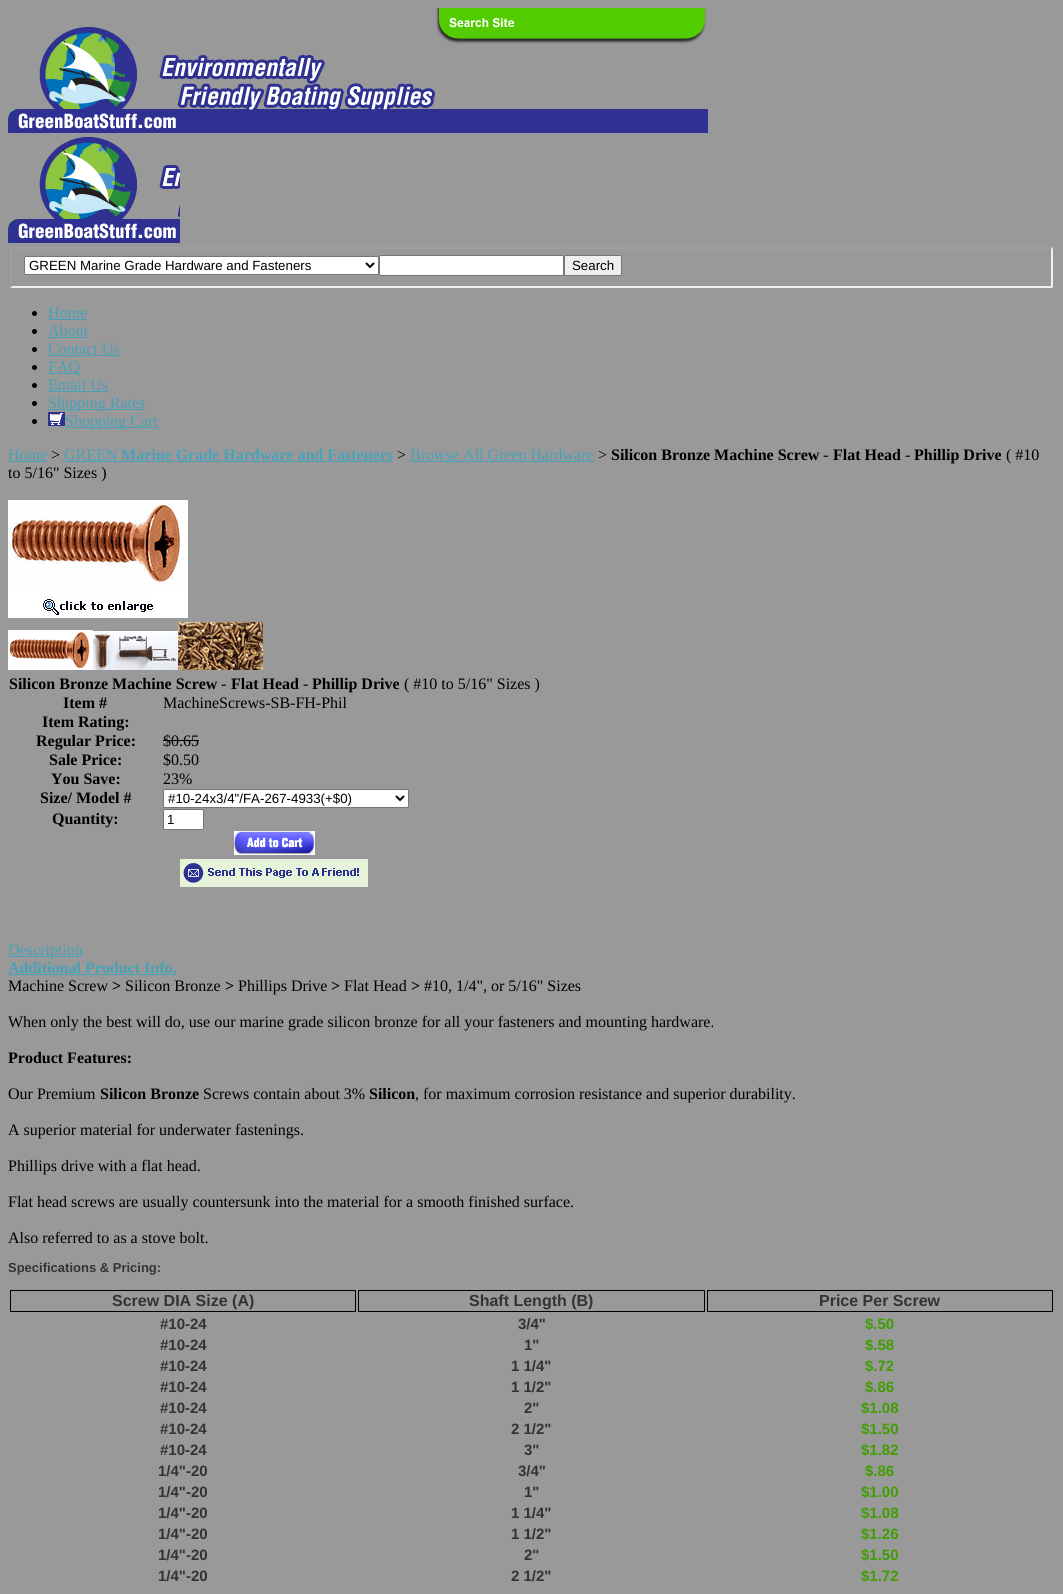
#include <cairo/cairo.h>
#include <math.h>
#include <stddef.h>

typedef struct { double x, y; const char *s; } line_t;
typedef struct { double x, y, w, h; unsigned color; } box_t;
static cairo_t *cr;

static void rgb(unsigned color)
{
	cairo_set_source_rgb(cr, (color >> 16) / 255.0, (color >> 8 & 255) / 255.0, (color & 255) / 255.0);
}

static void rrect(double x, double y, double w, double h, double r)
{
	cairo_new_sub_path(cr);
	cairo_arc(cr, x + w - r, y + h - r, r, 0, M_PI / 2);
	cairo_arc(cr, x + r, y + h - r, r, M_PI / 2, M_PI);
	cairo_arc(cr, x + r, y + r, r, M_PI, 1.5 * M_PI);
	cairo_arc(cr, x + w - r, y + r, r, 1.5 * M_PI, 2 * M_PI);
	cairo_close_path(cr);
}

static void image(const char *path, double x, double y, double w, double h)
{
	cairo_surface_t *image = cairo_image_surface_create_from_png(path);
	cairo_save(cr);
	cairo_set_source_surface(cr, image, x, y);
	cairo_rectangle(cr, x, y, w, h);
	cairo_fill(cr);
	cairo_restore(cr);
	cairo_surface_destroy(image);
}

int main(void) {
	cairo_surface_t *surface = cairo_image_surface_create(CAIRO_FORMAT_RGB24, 1063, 1594);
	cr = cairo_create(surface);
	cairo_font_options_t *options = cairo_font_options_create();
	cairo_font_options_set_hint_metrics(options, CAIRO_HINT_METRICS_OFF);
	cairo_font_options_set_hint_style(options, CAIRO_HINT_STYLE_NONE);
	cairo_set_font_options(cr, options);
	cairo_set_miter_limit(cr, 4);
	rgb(0x999999);
	cairo_paint(cr);
	image("img/1.png", 8, 8, 700, 125);
	image("img/2.png", 8, 137, 172, 106);
	rgb(0x9f9f9f);
	cairo_new_path(cr);
	cairo_move_to(cr, 10, 247);
	cairo_line_to(cr, 1053, 247);
	cairo_line_to(cr, 1051, 249);
	cairo_line_to(cr, 12, 249);
	cairo_close_path(cr);
	cairo_fill(cr);
	rgb(0xefefef);
	cairo_new_path(cr);
	cairo_move_to(cr, 1053, 247);
	cairo_line_to(cr, 1053, 288);
	cairo_line_to(cr, 1051, 286);
	cairo_line_to(cr, 1051, 249);
	cairo_close_path(cr);
	cairo_fill(cr);
	cairo_new_path(cr);
	cairo_move_to(cr, 1053, 288);
	cairo_line_to(cr, 10, 288);
	cairo_line_to(cr, 12, 286);
	cairo_line_to(cr, 1051, 286);
	cairo_close_path(cr);
	cairo_fill(cr);
	rgb(0x9f9f9f);
	cairo_new_path(cr);
	cairo_move_to(cr, 10, 288);
	cairo_line_to(cr, 10, 247);
	cairo_line_to(cr, 12, 249);
	cairo_line_to(cr, 12, 286);
	cairo_close_path(cr);
	cairo_fill(cr);
	rgb(0xffffff);
	rrect(24.5, 256.5, 354, 18, 1.5);
	cairo_fill_preserve(cr);
	rgb(0x767676);
	cairo_set_line_width(cr, 1);
	cairo_stroke(cr);
	cairo_new_path(cr);
	cairo_move_to(cr, 366, 263);
	cairo_line_to(cr, 370, 267);
	cairo_line_to(cr, 374, 263);
	rgb(0x000000);
	cairo_set_line_width(cr, 2);
	cairo_stroke(cr);
	rgb(0xffffff);
	rrect(379.5, 255.5, 184, 20, 1.5);
	cairo_fill_preserve(cr);
	rgb(0x767676);
	cairo_set_line_width(cr, 1);
	cairo_stroke(cr);
	rgb(0xefefef);
	rrect(564.5, 255.5, 57, 20, 1.5);
	cairo_fill_preserve(cr);
	rgb(0x767676);
	cairo_stroke(cr);
	rgb(0x000000);
	cairo_arc(cr, 34.5, 313.5, 2.5, 0, 2 * M_PI);
	cairo_fill(cr);
	rgb(0x47a1b8);
	cairo_rectangle(cr, 48, 319, 39, 1);
	cairo_fill(cr);
	rgb(0x000000);
	cairo_arc(cr, 34.5, 331.5, 2.5, 0, 2 * M_PI);
	cairo_fill(cr);
	rgb(0x47a1b8);
	cairo_rectangle(cr, 48, 337, 40, 1);
	cairo_fill(cr);
	rgb(0x000000);
	cairo_arc(cr, 34.5, 349.5, 2.5, 0, 2 * M_PI);
	cairo_fill(cr);
	rgb(0x47a1b8);
	cairo_rectangle(cr, 48, 355, 72, 1);
	cairo_fill(cr);
	rgb(0x000000);
	cairo_arc(cr, 34.5, 367.5, 2.5, 0, 2 * M_PI);
	cairo_fill(cr);
	rgb(0x47a1b8);
	cairo_rectangle(cr, 48, 373, 32, 1);
	cairo_fill(cr);
	rgb(0x000000);
	cairo_arc(cr, 34.5, 385.5, 2.5, 0, 2 * M_PI);
	cairo_fill(cr);
	rgb(0x47a1b8);
	cairo_rectangle(cr, 48, 391, 60, 1);
	cairo_fill(cr);
	rgb(0x000000);
	cairo_arc(cr, 34.5, 403.5, 2.5, 0, 2 * M_PI);
	cairo_fill(cr);
	rgb(0x47a1b8);
	cairo_rectangle(cr, 48, 409, 97, 1);
	cairo_fill(cr);
	rgb(0x000000);
	cairo_arc(cr, 34.5, 421.5, 2.5, 0, 2 * M_PI);
	cairo_fill(cr);
	image("img/3.png", 48, 412, 17, 14);
	{
		static const box_t items[] = {
			{65, 427, 93, 1, 0x47a1b8},
			{8, 461, 39, 1, 0x47a1b8},
			{64, 461, 329, 1, 0x47a1b8},
			{410, 461, 184, 1, 0x47a1b8},
		};
		for (size_t i = 0; i < sizeof items / sizeof *items; i++) {
			rgb(items[i].color);
			cairo_rectangle(cr, items[i].x, items[i].y, items[i].w, items[i].h);
			cairo_fill(cr);
		}
	}
	image("img/4.png", 8, 500, 180, 118);
	image("img/5.png", 8, 630, 85, 40);
	image("img/6.png", 93, 631, 85, 39);
	image("img/7.png", 178, 622, 85, 48);
	rgb(0x000000);
	cairo_rectangle(cr, 163, 740, 36, 1);
	cairo_fill(cr);
	rgb(0xffffff);
	rrect(163.5, 789.5, 245, 18, 1.5);
	cairo_fill_preserve(cr);
	rgb(0x767676);
	cairo_stroke(cr);
	cairo_new_path(cr);
	cairo_move_to(cr, 396, 796);
	cairo_line_to(cr, 400, 800);
	cairo_line_to(cr, 404, 796);
	rgb(0x000000);
	cairo_set_line_width(cr, 2);
	cairo_stroke(cr);
	rgb(0xffffff);
	rrect(163.5, 809.5, 40, 20, 1.5);
	cairo_fill_preserve(cr);
	rgb(0x767676);
	cairo_set_line_width(cr, 1);
	cairo_stroke(cr);
	image("img/8.png", 234, 831, 81, 24);
	image("img/9.png", 180, 859, 188, 28);
	rgb(0x47a1b8);
	cairo_rectangle(cr, 8, 956, 75, 1);
	cairo_fill(cr);
	cairo_rectangle(cr, 8, 974, 168, 1);
	cairo_fill(cr);
	cairo_rectangle(cr, 10.5, 1290.5, 345, 21);
	rgb(0x000000);
	cairo_stroke(cr);
	cairo_rectangle(cr, 358.5, 1290.5, 346, 21);
	cairo_stroke(cr);
	cairo_rectangle(cr, 707.5, 1290.5, 345, 21);
	cairo_stroke(cr);
	cairo_select_font_face(cr, "Liberation Sans", CAIRO_FONT_SLANT_NORMAL, CAIRO_FONT_WEIGHT_NORMAL);
	cairo_set_font_size(cr, 13.3);
	cairo_move_to(cr, 29, 270);
	cairo_show_text(cr, "GREEN Marine Grade Hardware and Fasteners");
	cairo_move_to(cr, 572, 270);
	cairo_show_text(cr, "Search");
	cairo_select_font_face(cr, "Liberation Serif", CAIRO_FONT_SLANT_NORMAL, CAIRO_FONT_WEIGHT_NORMAL);
	cairo_set_font_size(cr, 16);
	rgb(0x47a1b8);
	{
		static const line_t items[] = {
			{48, 318, "Home"},
			{48, 336, "About"},
			{48, 354, "Contact Us"},
			{48, 372, "FAQ"},
			{48, 390, "Email Us"},
			{48, 408, "Shipping Rates"},
			{65, 426, "Shopping Cart"},
			{8, 460, "Home"},
		};
		for (size_t i = 0; i < sizeof items / sizeof *items; i++) {
			cairo_move_to(cr, items[i].x, items[i].y);
			cairo_show_text(cr, items[i].s);
		}
	}
	rgb(0x000000);
	cairo_move_to(cr, 51, 460);
	cairo_show_text(cr, ">");
	rgb(0x47a1b8);
	cairo_move_to(cr, 64, 460);
	cairo_show_text(cr, "GREEN");
	cairo_select_font_face(cr, "Liberation Serif", CAIRO_FONT_SLANT_NORMAL, CAIRO_FONT_WEIGHT_BOLD);
	cairo_move_to(cr, 121, 460);
	cairo_show_text(cr, "Marine Grade Hardware and Fasteners");
	cairo_select_font_face(cr, "Liberation Serif", CAIRO_FONT_SLANT_NORMAL, CAIRO_FONT_WEIGHT_NORMAL);
	rgb(0x000000);
	cairo_move_to(cr, 397, 460);
	cairo_show_text(cr, ">");
	rgb(0x47a1b8);
	cairo_move_to(cr, 410, 460);
	cairo_show_text(cr, "Browse All Green Hardware");
	rgb(0x000000);
	cairo_move_to(cr, 598, 460);
	cairo_show_text(cr, ">");
	cairo_select_font_face(cr, "Liberation Serif", CAIRO_FONT_SLANT_NORMAL, CAIRO_FONT_WEIGHT_BOLD);
	cairo_move_to(cr, 611, 460);
	cairo_show_text(cr, "Silicon Bronze Machine Screw");
	cairo_select_font_face(cr, "Liberation Serif", CAIRO_FONT_SLANT_NORMAL, CAIRO_FONT_WEIGHT_NORMAL);
	cairo_move_to(cr, 823, 460);
	cairo_show_text(cr, "-");
	cairo_select_font_face(cr, "Liberation Serif", CAIRO_FONT_SLANT_NORMAL, CAIRO_FONT_WEIGHT_BOLD);
	cairo_move_to(cr, 833, 460);
	cairo_show_text(cr, "Flat Head");
	cairo_select_font_face(cr, "Liberation Serif", CAIRO_FONT_SLANT_NORMAL, CAIRO_FONT_WEIGHT_NORMAL);
	cairo_move_to(cr, 905, 460);
	cairo_show_text(cr, "-");
	cairo_select_font_face(cr, "Liberation Serif", CAIRO_FONT_SLANT_NORMAL, CAIRO_FONT_WEIGHT_BOLD);
	cairo_move_to(cr, 914, 460);
	cairo_show_text(cr, "Phillip Drive");
	cairo_select_font_face(cr, "Liberation Serif", CAIRO_FONT_SLANT_NORMAL, CAIRO_FONT_WEIGHT_NORMAL);
	cairo_move_to(cr, 1006, 460);
	cairo_show_text(cr, "( #10");
	cairo_move_to(cr, 8, 478);
	cairo_show_text(cr, "to 5/16\" Sizes )");
	cairo_select_font_face(cr, "Liberation Serif", CAIRO_FONT_SLANT_NORMAL, CAIRO_FONT_WEIGHT_BOLD);
	cairo_move_to(cr, 9, 689);
	cairo_show_text(cr, "Silicon Bronze Machine Screw");
	cairo_select_font_face(cr, "Liberation Serif", CAIRO_FONT_SLANT_NORMAL, CAIRO_FONT_WEIGHT_NORMAL);
	cairo_move_to(cr, 221, 689);
	cairo_show_text(cr, "-");
	cairo_select_font_face(cr, "Liberation Serif", CAIRO_FONT_SLANT_NORMAL, CAIRO_FONT_WEIGHT_BOLD);
	cairo_move_to(cr, 231, 689);
	cairo_show_text(cr, "Flat Head");
	cairo_select_font_face(cr, "Liberation Serif", CAIRO_FONT_SLANT_NORMAL, CAIRO_FONT_WEIGHT_NORMAL);
	cairo_move_to(cr, 303, 689);
	cairo_show_text(cr, "-");
	cairo_select_font_face(cr, "Liberation Serif", CAIRO_FONT_SLANT_NORMAL, CAIRO_FONT_WEIGHT_BOLD);
	cairo_move_to(cr, 312, 689);
	cairo_show_text(cr, "Phillip Drive");
	cairo_select_font_face(cr, "Liberation Serif", CAIRO_FONT_SLANT_NORMAL, CAIRO_FONT_WEIGHT_NORMAL);
	cairo_move_to(cr, 404, 689);
	cairo_show_text(cr, "( #10 to 5/16\" Sizes )");
	cairo_select_font_face(cr, "Liberation Serif", CAIRO_FONT_SLANT_NORMAL, CAIRO_FONT_WEIGHT_BOLD);
	cairo_move_to(cr, 63, 708);
	cairo_show_text(cr, "Item #");
	cairo_select_font_face(cr, "Liberation Serif", CAIRO_FONT_SLANT_NORMAL, CAIRO_FONT_WEIGHT_NORMAL);
	cairo_move_to(cr, 163, 708);
	cairo_show_text(cr, "MachineScrews-SB-FH-Phil");
	cairo_select_font_face(cr, "Liberation Serif", CAIRO_FONT_SLANT_NORMAL, CAIRO_FONT_WEIGHT_BOLD);
	cairo_move_to(cr, 42, 727);
	cairo_show_text(cr, "Item Rating:");
	cairo_move_to(cr, 36, 746);
	cairo_show_text(cr, "Regular Price:");
	cairo_select_font_face(cr, "Liberation Serif", CAIRO_FONT_SLANT_NORMAL, CAIRO_FONT_WEIGHT_NORMAL);
	cairo_move_to(cr, 163, 746);
	cairo_show_text(cr, "$0.65");
	cairo_select_font_face(cr, "Liberation Serif", CAIRO_FONT_SLANT_NORMAL, CAIRO_FONT_WEIGHT_BOLD);
	cairo_move_to(cr, 49, 765);
	cairo_show_text(cr, "Sale Price:");
	cairo_select_font_face(cr, "Liberation Serif", CAIRO_FONT_SLANT_NORMAL, CAIRO_FONT_WEIGHT_NORMAL);
	cairo_move_to(cr, 163, 765);
	cairo_show_text(cr, "$0.50");
	cairo_select_font_face(cr, "Liberation Serif", CAIRO_FONT_SLANT_NORMAL, CAIRO_FONT_WEIGHT_BOLD);
	cairo_move_to(cr, 51, 784);
	cairo_show_text(cr, "You Save:");
	cairo_select_font_face(cr, "Liberation Serif", CAIRO_FONT_SLANT_NORMAL, CAIRO_FONT_WEIGHT_NORMAL);
	cairo_move_to(cr, 163, 784);
	cairo_show_text(cr, "23%");
	cairo_select_font_face(cr, "Liberation Serif", CAIRO_FONT_SLANT_NORMAL, CAIRO_FONT_WEIGHT_BOLD);
	cairo_move_to(cr, 40, 803);
	cairo_show_text(cr, "Size/ Model #");
	cairo_select_font_face(cr, "Liberation Sans", CAIRO_FONT_SLANT_NORMAL, CAIRO_FONT_WEIGHT_NORMAL);
	cairo_set_font_size(cr, 13.3);
	cairo_move_to(cr, 168, 803);
	cairo_show_text(cr, "#10-24x3/4\"/FA-267-4933(+$0)");
	cairo_select_font_face(cr, "Liberation Serif", CAIRO_FONT_SLANT_NORMAL, CAIRO_FONT_WEIGHT_BOLD);
	cairo_set_font_size(cr, 16);
	cairo_move_to(cr, 52, 824);
	cairo_show_text(cr, "Quantity:");
	cairo_select_font_face(cr, "Liberation Sans", CAIRO_FONT_SLANT_NORMAL, CAIRO_FONT_WEIGHT_NORMAL);
	cairo_set_font_size(cr, 13.3);
	cairo_move_to(cr, 167, 824);
	cairo_show_text(cr, "1");
	cairo_select_font_face(cr, "Liberation Serif", CAIRO_FONT_SLANT_NORMAL, CAIRO_FONT_WEIGHT_NORMAL);
	cairo_set_font_size(cr, 16);
	rgb(0x47a1b8);
	cairo_move_to(cr, 8, 955);
	cairo_show_text(cr, "Description");
	cairo_select_font_face(cr, "Liberation Serif", CAIRO_FONT_SLANT_NORMAL, CAIRO_FONT_WEIGHT_BOLD);
	cairo_move_to(cr, 8, 973);
	cairo_show_text(cr, "Additional Product Info.");
	cairo_select_font_face(cr, "Liberation Serif", CAIRO_FONT_SLANT_NORMAL, CAIRO_FONT_WEIGHT_NORMAL);
	rgb(0x000000);
	cairo_move_to(cr, 8, 991);
	cairo_show_text(cr, "Machine Screw");
	cairo_select_font_face(cr, "Liberation Serif", CAIRO_FONT_SLANT_NORMAL, CAIRO_FONT_WEIGHT_BOLD);
	cairo_move_to(cr, 112, 991);
	cairo_show_text(cr, ">");
	cairo_select_font_face(cr, "Liberation Serif", CAIRO_FONT_SLANT_NORMAL, CAIRO_FONT_WEIGHT_NORMAL);
	cairo_move_to(cr, 125, 991);
	cairo_show_text(cr, "Silicon Bronze");
	cairo_select_font_face(cr, "Liberation Serif", CAIRO_FONT_SLANT_NORMAL, CAIRO_FONT_WEIGHT_BOLD);
	cairo_move_to(cr, 225, 991);
	cairo_show_text(cr, ">");
	cairo_select_font_face(cr, "Liberation Serif", CAIRO_FONT_SLANT_NORMAL, CAIRO_FONT_WEIGHT_NORMAL);
	cairo_move_to(cr, 238, 991);
	cairo_show_text(cr, "Phillips Drive");
	cairo_select_font_face(cr, "Liberation Serif", CAIRO_FONT_SLANT_NORMAL, CAIRO_FONT_WEIGHT_BOLD);
	cairo_move_to(cr, 331, 991);
	cairo_show_text(cr, ">");
	cairo_select_font_face(cr, "Liberation Serif", CAIRO_FONT_SLANT_NORMAL, CAIRO_FONT_WEIGHT_NORMAL);
	cairo_move_to(cr, 344, 991);
	cairo_show_text(cr, "Flat Head");
	cairo_select_font_face(cr, "Liberation Serif", CAIRO_FONT_SLANT_NORMAL, CAIRO_FONT_WEIGHT_BOLD);
	cairo_move_to(cr, 411, 991);
	cairo_show_text(cr, ">");
	cairo_select_font_face(cr, "Liberation Serif", CAIRO_FONT_SLANT_NORMAL, CAIRO_FONT_WEIGHT_NORMAL);
	cairo_move_to(cr, 424, 991);
	cairo_show_text(cr, "#10, 1/4\", or 5/16\" Sizes");
	cairo_move_to(cr, 8, 1027);
	cairo_show_text(cr, "When only the best will do, use our marine grade silicon bronze for all your fasteners and mounting hardware.");
	cairo_select_font_face(cr, "Liberation Serif", CAIRO_FONT_SLANT_NORMAL, CAIRO_FONT_WEIGHT_BOLD);
	cairo_move_to(cr, 8, 1063);
	cairo_show_text(cr, "Product Features:");
	cairo_select_font_face(cr, "Liberation Serif", CAIRO_FONT_SLANT_NORMAL, CAIRO_FONT_WEIGHT_NORMAL);
	cairo_move_to(cr, 8, 1099);
	cairo_show_text(cr, "Our Premium");
	cairo_select_font_face(cr, "Liberation Serif", CAIRO_FONT_SLANT_NORMAL, CAIRO_FONT_WEIGHT_BOLD);
	cairo_move_to(cr, 100, 1099);
	cairo_show_text(cr, "Silicon Bronze");
	cairo_select_font_face(cr, "Liberation Serif", CAIRO_FONT_SLANT_NORMAL, CAIRO_FONT_WEIGHT_NORMAL);
	cairo_move_to(cr, 203, 1099);
	cairo_show_text(cr, "Screws contain about 3%");
	cairo_select_font_face(cr, "Liberation Serif", CAIRO_FONT_SLANT_NORMAL, CAIRO_FONT_WEIGHT_BOLD);
	cairo_move_to(cr, 369, 1099);
	cairo_show_text(cr, "Silicon");
	cairo_select_font_face(cr, "Liberation Serif", CAIRO_FONT_SLANT_NORMAL, CAIRO_FONT_WEIGHT_NORMAL);
	{
		static const line_t items[] = {
			{415, 1099, ", for maximum corrosion resistance and superior durability."},
			{8, 1135, "A superior material for underwater fastenings."},
			{8, 1171, "Phillips drive with a flat head."},
			{8, 1207, "Flat head screws are usually countersunk into the material for a smooth finished surface."},
			{8, 1243, "Also referred to as a stove bolt."},
		};
		for (size_t i = 0; i < sizeof items / sizeof *items; i++) {
			cairo_move_to(cr, items[i].x, items[i].y);
			cairo_show_text(cr, items[i].s);
		}
	}
	cairo_select_font_face(cr, "Liberation Sans", CAIRO_FONT_SLANT_NORMAL, CAIRO_FONT_WEIGHT_BOLD);
	cairo_set_font_size(cr, 13);
	rgb(0x333333);
	cairo_move_to(cr, 8, 1272);
	cairo_show_text(cr, "Specifications & Pricing:");
	cairo_set_font_size(cr, 16);
	{
		static const line_t items[] = {
			{112, 1306, "Screw DIA Size (A)"},
			{469, 1306, "Shaft Length (B)"},
			{819, 1306, "Price Per Screw"},
		};
		for (size_t i = 0; i < sizeof items / sizeof *items; i++) {
			cairo_move_to(cr, items[i].x, items[i].y);
			cairo_show_text(cr, items[i].s);
		}
	}
	cairo_set_font_size(cr, 15);
	cairo_move_to(cr, 160, 1329);
	cairo_show_text(cr, "#10-24");
	cairo_move_to(cr, 518, 1329);
	cairo_show_text(cr, "3/4\"");
	rgb(0x409e02);
	cairo_move_to(cr, 865, 1329);
	cairo_show_text(cr, "$.50");
	rgb(0x333333);
	cairo_move_to(cr, 160, 1350);
	cairo_show_text(cr, "#10-24");
	cairo_move_to(cr, 524, 1350);
	cairo_show_text(cr, "1\"");
	rgb(0x409e02);
	cairo_move_to(cr, 865, 1350);
	cairo_show_text(cr, "$.58");
	rgb(0x333333);
	cairo_move_to(cr, 160, 1371);
	cairo_show_text(cr, "#10-24");
	cairo_move_to(cr, 511, 1371);
	cairo_show_text(cr, "1 1/4\"");
	rgb(0x409e02);
	cairo_move_to(cr, 865, 1371);
	cairo_show_text(cr, "$.72");
	rgb(0x333333);
	cairo_move_to(cr, 160, 1392);
	cairo_show_text(cr, "#10-24");
	cairo_move_to(cr, 511, 1392);
	cairo_show_text(cr, "1 1/2\"");
	rgb(0x409e02);
	cairo_move_to(cr, 865, 1392);
	cairo_show_text(cr, "$.86");
	rgb(0x333333);
	cairo_move_to(cr, 160, 1413);
	cairo_show_text(cr, "#10-24");
	cairo_move_to(cr, 524, 1413);
	cairo_show_text(cr, "2\"");
	rgb(0x409e02);
	cairo_move_to(cr, 861, 1413);
	cairo_show_text(cr, "$1.08");
	rgb(0x333333);
	cairo_move_to(cr, 160, 1434);
	cairo_show_text(cr, "#10-24");
	cairo_move_to(cr, 511, 1434);
	cairo_show_text(cr, "2 1/2\"");
	rgb(0x409e02);
	cairo_move_to(cr, 861, 1434);
	cairo_show_text(cr, "$1.50");
	rgb(0x333333);
	cairo_move_to(cr, 160, 1455);
	cairo_show_text(cr, "#10-24");
	cairo_move_to(cr, 524, 1455);
	cairo_show_text(cr, "3\"");
	rgb(0x409e02);
	cairo_move_to(cr, 861, 1455);
	cairo_show_text(cr, "$1.82");
	rgb(0x333333);
	cairo_move_to(cr, 158, 1476);
	cairo_show_text(cr, "1/4\"-20");
	cairo_move_to(cr, 518, 1476);
	cairo_show_text(cr, "3/4\"");
	rgb(0x409e02);
	cairo_move_to(cr, 865, 1476);
	cairo_show_text(cr, "$.86");
	rgb(0x333333);
	cairo_move_to(cr, 158, 1497);
	cairo_show_text(cr, "1/4\"-20");
	cairo_move_to(cr, 524, 1497);
	cairo_show_text(cr, "1\"");
	rgb(0x409e02);
	cairo_move_to(cr, 861, 1497);
	cairo_show_text(cr, "$1.00");
	rgb(0x333333);
	cairo_move_to(cr, 158, 1518);
	cairo_show_text(cr, "1/4\"-20");
	cairo_move_to(cr, 511, 1518);
	cairo_show_text(cr, "1 1/4\"");
	rgb(0x409e02);
	cairo_move_to(cr, 861, 1518);
	cairo_show_text(cr, "$1.08");
	rgb(0x333333);
	cairo_move_to(cr, 158, 1539);
	cairo_show_text(cr, "1/4\"-20");
	cairo_move_to(cr, 511, 1539);
	cairo_show_text(cr, "1 1/2\"");
	rgb(0x409e02);
	cairo_move_to(cr, 861, 1539);
	cairo_show_text(cr, "$1.26");
	rgb(0x333333);
	cairo_move_to(cr, 158, 1560);
	cairo_show_text(cr, "1/4\"-20");
	cairo_move_to(cr, 524, 1560);
	cairo_show_text(cr, "2\"");
	rgb(0x409e02);
	cairo_move_to(cr, 861, 1560);
	cairo_show_text(cr, "$1.50");
	rgb(0x333333);
	cairo_move_to(cr, 158, 1581);
	cairo_show_text(cr, "1/4\"-20");
	cairo_move_to(cr, 511, 1581);
	cairo_show_text(cr, "2 1/2\"");
	rgb(0x409e02);
	cairo_move_to(cr, 861, 1581);
	cairo_show_text(cr, "$1.72");
	cairo_surface_write_to_png(surface, "page.png");
	cairo_font_options_destroy(options);
	cairo_destroy(cr);
	cairo_surface_destroy(surface);
	return 0;
}
